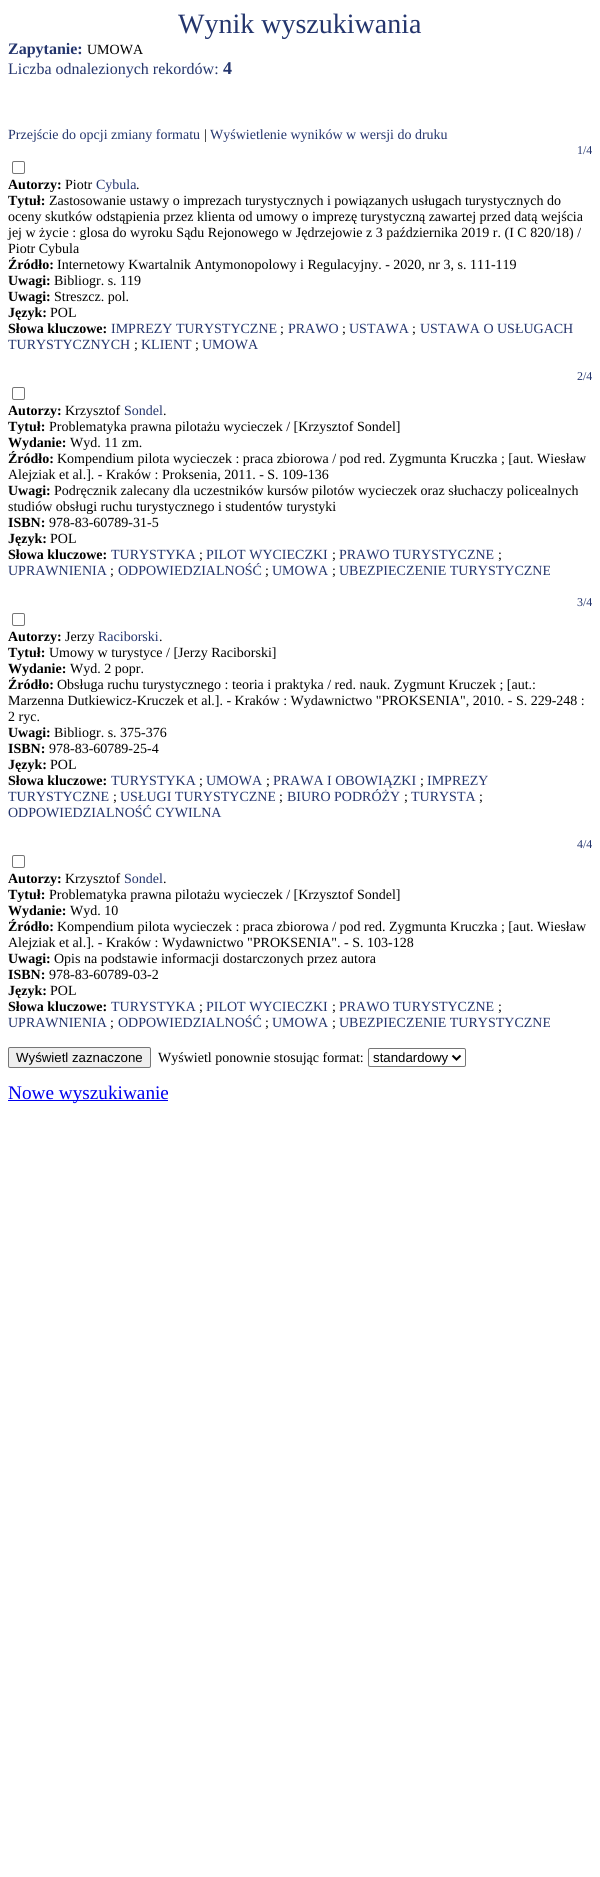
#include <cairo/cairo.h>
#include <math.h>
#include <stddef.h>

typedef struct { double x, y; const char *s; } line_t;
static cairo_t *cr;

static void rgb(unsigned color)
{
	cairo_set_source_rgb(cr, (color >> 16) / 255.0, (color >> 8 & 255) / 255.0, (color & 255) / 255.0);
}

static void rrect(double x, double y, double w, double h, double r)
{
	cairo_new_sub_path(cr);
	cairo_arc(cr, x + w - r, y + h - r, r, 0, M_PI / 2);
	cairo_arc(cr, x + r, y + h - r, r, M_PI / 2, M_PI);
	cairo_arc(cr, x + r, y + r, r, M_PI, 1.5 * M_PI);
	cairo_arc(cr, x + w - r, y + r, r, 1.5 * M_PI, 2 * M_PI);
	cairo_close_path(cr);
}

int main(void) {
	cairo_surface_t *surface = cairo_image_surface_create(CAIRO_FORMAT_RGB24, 600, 1877);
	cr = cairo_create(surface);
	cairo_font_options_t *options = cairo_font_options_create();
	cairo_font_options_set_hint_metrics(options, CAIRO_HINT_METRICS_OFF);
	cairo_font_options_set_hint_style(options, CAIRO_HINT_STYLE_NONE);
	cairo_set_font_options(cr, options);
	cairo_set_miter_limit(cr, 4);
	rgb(0xffffff);
	cairo_paint(cr);
	rrect(12.5, 161.5, 12, 12, 1.5);
	rgb(0x767676);
	cairo_set_line_width(cr, 1);
	cairo_stroke(cr);
	rrect(12.5, 387.5, 12, 12, 1.5);
	cairo_stroke(cr);
	rrect(12.5, 613.5, 12, 12, 1.5);
	cairo_stroke(cr);
	rrect(12.5, 855.5, 12, 12, 1.5);
	cairo_stroke(cr);
	rgb(0xefefef);
	rrect(8.5, 1047.5, 142, 20, 1.5);
	cairo_fill_preserve(cr);
	rgb(0x767676);
	cairo_stroke(cr);
	rrect(368.5, 1048.5, 97, 18, 1.5);
	cairo_stroke(cr);
	cairo_new_path(cr);
	cairo_move_to(cr, 452.5, 1055.5);
	cairo_line_to(cr, 456.5, 1059.5);
	cairo_line_to(cr, 460.5, 1055.5);
	rgb(0x000000);
	cairo_set_line_width(cr, 2);
	cairo_stroke(cr);
	rgb(0x0000ee);
	cairo_rectangle(cr, 8, 1100, 160, 1);
	cairo_fill(cr);
	cairo_select_font_face(cr, "Liberation Serif", CAIRO_FONT_SLANT_NORMAL, CAIRO_FONT_WEIGHT_NORMAL);
	cairo_set_font_size(cr, 28);
	rgb(0x24356d);
	cairo_move_to(cr, 178, 33);
	cairo_show_text(cr, "Wynik wyszukiwania");
	cairo_select_font_face(cr, "Liberation Serif", CAIRO_FONT_SLANT_NORMAL, CAIRO_FONT_WEIGHT_BOLD);
	cairo_set_font_size(cr, 16);
	cairo_move_to(cr, 8, 54);
	cairo_show_text(cr, "Zapytanie:");
	cairo_select_font_face(cr, "Liberation Serif", CAIRO_FONT_SLANT_NORMAL, CAIRO_FONT_WEIGHT_NORMAL);
	cairo_set_font_size(cr, 14);
	rgb(0x000000);
	cairo_move_to(cr, 87, 54);
	cairo_show_text(cr, "UMOWA");
	cairo_set_font_size(cr, 16);
	rgb(0x24356d);
	cairo_move_to(cr, 8, 74);
	cairo_show_text(cr, "Liczba odnalezionych rekordów:");
	cairo_select_font_face(cr, "Liberation Serif", CAIRO_FONT_SLANT_NORMAL, CAIRO_FONT_WEIGHT_BOLD);
	cairo_set_font_size(cr, 18);
	cairo_move_to(cr, 223, 74);
	cairo_show_text(cr, "4");
	cairo_select_font_face(cr, "Liberation Serif", CAIRO_FONT_SLANT_NORMAL, CAIRO_FONT_WEIGHT_NORMAL);
	cairo_set_font_size(cr, 14);
	cairo_move_to(cr, 8, 139);
	cairo_show_text(cr, "Przejście do opcji zmiany formatu");
	rgb(0x000000);
	cairo_move_to(cr, 204, 139);
	cairo_show_text(cr, "|");
	rgb(0x24356d);
	cairo_move_to(cr, 210, 139);
	cairo_show_text(cr, "Wyświetlenie wyników w wersji do druku");
	cairo_set_font_size(cr, 12);
	cairo_move_to(cr, 577, 154);
	cairo_show_text(cr, "1/4");
	cairo_select_font_face(cr, "Liberation Serif", CAIRO_FONT_SLANT_NORMAL, CAIRO_FONT_WEIGHT_BOLD);
	cairo_set_font_size(cr, 14);
	rgb(0x000000);
	cairo_move_to(cr, 8, 189);
	cairo_show_text(cr, "Autorzy:");
	cairo_select_font_face(cr, "Liberation Serif", CAIRO_FONT_SLANT_NORMAL, CAIRO_FONT_WEIGHT_NORMAL);
	cairo_move_to(cr, 65, 189);
	cairo_show_text(cr, "Piotr");
	rgb(0x24356d);
	cairo_move_to(cr, 96, 189);
	cairo_show_text(cr, "Cybula");
	rgb(0x000000);
	cairo_move_to(cr, 136, 189);
	cairo_show_text(cr, ".");
	cairo_select_font_face(cr, "Liberation Serif", CAIRO_FONT_SLANT_NORMAL, CAIRO_FONT_WEIGHT_BOLD);
	cairo_move_to(cr, 8, 205);
	cairo_show_text(cr, "Tytuł:");
	cairo_select_font_face(cr, "Liberation Serif", CAIRO_FONT_SLANT_NORMAL, CAIRO_FONT_WEIGHT_NORMAL);
	{
		static const line_t items[] = {
			{49, 205, "Zastosowanie ustawy o imprezach turystycznych i powiązanych usługach turystycznych do"},
			{8, 221, "oceny skutków odstąpienia przez klienta od umowy o imprezę turystyczną zawartej przed datą wejścia"},
			{8, 237, "jej w życie : glosa do wyroku Sądu Rejonowego w Jędrzejowie z 3 października 2019 r. (I C 820/18) /"},
			{8, 253, "Piotr Cybula"},
		};
		for (size_t i = 0; i < sizeof items / sizeof *items; i++) {
			cairo_move_to(cr, items[i].x, items[i].y);
			cairo_show_text(cr, items[i].s);
		}
	}
	cairo_select_font_face(cr, "Liberation Serif", CAIRO_FONT_SLANT_NORMAL, CAIRO_FONT_WEIGHT_BOLD);
	cairo_move_to(cr, 8, 269);
	cairo_show_text(cr, "Źródło:");
	cairo_select_font_face(cr, "Liberation Serif", CAIRO_FONT_SLANT_NORMAL, CAIRO_FONT_WEIGHT_NORMAL);
	cairo_move_to(cr, 57, 269);
	cairo_show_text(cr, "Internetowy Kwartalnik Antymonopolowy i Regulacyjny. - 2020, nr 3, s. 111-119");
	cairo_select_font_face(cr, "Liberation Serif", CAIRO_FONT_SLANT_NORMAL, CAIRO_FONT_WEIGHT_BOLD);
	cairo_move_to(cr, 8, 285);
	cairo_show_text(cr, "Uwagi:");
	cairo_select_font_face(cr, "Liberation Serif", CAIRO_FONT_SLANT_NORMAL, CAIRO_FONT_WEIGHT_NORMAL);
	cairo_move_to(cr, 54, 285);
	cairo_show_text(cr, "Bibliogr. s. 119");
	cairo_select_font_face(cr, "Liberation Serif", CAIRO_FONT_SLANT_NORMAL, CAIRO_FONT_WEIGHT_BOLD);
	cairo_move_to(cr, 8, 301);
	cairo_show_text(cr, "Uwagi:");
	cairo_select_font_face(cr, "Liberation Serif", CAIRO_FONT_SLANT_NORMAL, CAIRO_FONT_WEIGHT_NORMAL);
	cairo_move_to(cr, 54, 301);
	cairo_show_text(cr, "Streszcz. pol.");
	cairo_select_font_face(cr, "Liberation Serif", CAIRO_FONT_SLANT_NORMAL, CAIRO_FONT_WEIGHT_BOLD);
	cairo_move_to(cr, 8, 317);
	cairo_show_text(cr, "Język:");
	cairo_select_font_face(cr, "Liberation Serif", CAIRO_FONT_SLANT_NORMAL, CAIRO_FONT_WEIGHT_NORMAL);
	cairo_move_to(cr, 50, 317);
	cairo_show_text(cr, "POL");
	cairo_select_font_face(cr, "Liberation Serif", CAIRO_FONT_SLANT_NORMAL, CAIRO_FONT_WEIGHT_BOLD);
	cairo_move_to(cr, 8, 333);
	cairo_show_text(cr, "Słowa kluczowe:");
	cairo_select_font_face(cr, "Liberation Serif", CAIRO_FONT_SLANT_NORMAL, CAIRO_FONT_WEIGHT_NORMAL);
	rgb(0x24356d);
	cairo_move_to(cr, 111, 333);
	cairo_show_text(cr, "IMPREZY TURYSTYCZNE");
	rgb(0x000000);
	cairo_move_to(cr, 280, 333);
	cairo_show_text(cr, ";");
	rgb(0x24356d);
	cairo_move_to(cr, 288, 333);
	cairo_show_text(cr, "PRAWO");
	rgb(0x000000);
	cairo_move_to(cr, 342, 333);
	cairo_show_text(cr, ";");
	rgb(0x24356d);
	cairo_move_to(cr, 349, 333);
	cairo_show_text(cr, "USTAWA");
	rgb(0x000000);
	cairo_move_to(cr, 412, 333);
	cairo_show_text(cr, ";");
	rgb(0x24356d);
	cairo_move_to(cr, 420, 333);
	cairo_show_text(cr, "USTAWA O USŁUGACH");
	cairo_move_to(cr, 8, 349);
	cairo_show_text(cr, "TURYSTYCZNYCH");
	rgb(0x000000);
	cairo_move_to(cr, 134, 349);
	cairo_show_text(cr, ";");
	rgb(0x24356d);
	cairo_move_to(cr, 141, 349);
	cairo_show_text(cr, "KLIENT");
	rgb(0x000000);
	cairo_move_to(cr, 195, 349);
	cairo_show_text(cr, ";");
	rgb(0x24356d);
	cairo_move_to(cr, 202, 349);
	cairo_show_text(cr, "UMOWA");
	cairo_set_font_size(cr, 12);
	cairo_move_to(cr, 577, 380);
	cairo_show_text(cr, "2/4");
	cairo_select_font_face(cr, "Liberation Serif", CAIRO_FONT_SLANT_NORMAL, CAIRO_FONT_WEIGHT_BOLD);
	cairo_set_font_size(cr, 14);
	rgb(0x000000);
	cairo_move_to(cr, 8, 415);
	cairo_show_text(cr, "Autorzy:");
	cairo_select_font_face(cr, "Liberation Serif", CAIRO_FONT_SLANT_NORMAL, CAIRO_FONT_WEIGHT_NORMAL);
	cairo_move_to(cr, 65, 415);
	cairo_show_text(cr, "Krzysztof");
	rgb(0x24356d);
	cairo_move_to(cr, 124, 415);
	cairo_show_text(cr, "Sondel");
	rgb(0x000000);
	cairo_move_to(cr, 163, 415);
	cairo_show_text(cr, ".");
	cairo_select_font_face(cr, "Liberation Serif", CAIRO_FONT_SLANT_NORMAL, CAIRO_FONT_WEIGHT_BOLD);
	cairo_move_to(cr, 8, 431);
	cairo_show_text(cr, "Tytuł:");
	cairo_select_font_face(cr, "Liberation Serif", CAIRO_FONT_SLANT_NORMAL, CAIRO_FONT_WEIGHT_NORMAL);
	cairo_move_to(cr, 49, 431);
	cairo_show_text(cr, "Problematyka prawna pilotażu wycieczek / [Krzysztof Sondel]");
	cairo_select_font_face(cr, "Liberation Serif", CAIRO_FONT_SLANT_NORMAL, CAIRO_FONT_WEIGHT_BOLD);
	cairo_move_to(cr, 8, 447);
	cairo_show_text(cr, "Wydanie:");
	cairo_select_font_face(cr, "Liberation Serif", CAIRO_FONT_SLANT_NORMAL, CAIRO_FONT_WEIGHT_NORMAL);
	cairo_move_to(cr, 70, 447);
	cairo_show_text(cr, "Wyd. 11 zm.");
	cairo_select_font_face(cr, "Liberation Serif", CAIRO_FONT_SLANT_NORMAL, CAIRO_FONT_WEIGHT_BOLD);
	cairo_move_to(cr, 8, 463);
	cairo_show_text(cr, "Źródło:");
	cairo_select_font_face(cr, "Liberation Serif", CAIRO_FONT_SLANT_NORMAL, CAIRO_FONT_WEIGHT_NORMAL);
	cairo_move_to(cr, 57, 463);
	cairo_show_text(cr, "Kompendium pilota wycieczek : praca zbiorowa / pod red. Zygmunta Kruczka ; [aut. Wiesław");
	cairo_move_to(cr, 8, 479);
	cairo_show_text(cr, "Alejziak et al.]. - Kraków : Proksenia, 2011. - S. 109-136");
	cairo_select_font_face(cr, "Liberation Serif", CAIRO_FONT_SLANT_NORMAL, CAIRO_FONT_WEIGHT_BOLD);
	cairo_move_to(cr, 8, 495);
	cairo_show_text(cr, "Uwagi:");
	cairo_select_font_face(cr, "Liberation Serif", CAIRO_FONT_SLANT_NORMAL, CAIRO_FONT_WEIGHT_NORMAL);
	cairo_move_to(cr, 54, 495);
	cairo_show_text(cr, "Podręcznik zalecany dla uczestników kursów pilotów wycieczek oraz słuchaczy policealnych");
	cairo_move_to(cr, 8, 511);
	cairo_show_text(cr, "studiów obsługi ruchu turystycznego i studentów turystyki");
	cairo_select_font_face(cr, "Liberation Serif", CAIRO_FONT_SLANT_NORMAL, CAIRO_FONT_WEIGHT_BOLD);
	cairo_move_to(cr, 8, 527);
	cairo_show_text(cr, "ISBN:");
	cairo_select_font_face(cr, "Liberation Serif", CAIRO_FONT_SLANT_NORMAL, CAIRO_FONT_WEIGHT_NORMAL);
	cairo_move_to(cr, 49, 527);
	cairo_show_text(cr, "978-83-60789-31-5");
	cairo_select_font_face(cr, "Liberation Serif", CAIRO_FONT_SLANT_NORMAL, CAIRO_FONT_WEIGHT_BOLD);
	cairo_move_to(cr, 8, 543);
	cairo_show_text(cr, "Język:");
	cairo_select_font_face(cr, "Liberation Serif", CAIRO_FONT_SLANT_NORMAL, CAIRO_FONT_WEIGHT_NORMAL);
	cairo_move_to(cr, 50, 543);
	cairo_show_text(cr, "POL");
	cairo_select_font_face(cr, "Liberation Serif", CAIRO_FONT_SLANT_NORMAL, CAIRO_FONT_WEIGHT_BOLD);
	cairo_move_to(cr, 8, 559);
	cairo_show_text(cr, "Słowa kluczowe:");
	cairo_select_font_face(cr, "Liberation Serif", CAIRO_FONT_SLANT_NORMAL, CAIRO_FONT_WEIGHT_NORMAL);
	rgb(0x24356d);
	cairo_move_to(cr, 111, 559);
	cairo_show_text(cr, "TURYSTYKA");
	rgb(0x000000);
	cairo_move_to(cr, 199, 559);
	cairo_show_text(cr, ";");
	rgb(0x24356d);
	cairo_move_to(cr, 206, 559);
	cairo_show_text(cr, "PILOT WYCIECZKI");
	rgb(0x000000);
	cairo_move_to(cr, 332, 559);
	cairo_show_text(cr, ";");
	rgb(0x24356d);
	cairo_move_to(cr, 339, 559);
	cairo_show_text(cr, "PRAWO TURYSTYCZNE");
	rgb(0x000000);
	cairo_move_to(cr, 498, 559);
	cairo_show_text(cr, ";");
	rgb(0x24356d);
	cairo_move_to(cr, 8, 575);
	cairo_show_text(cr, "UPRAWNIENIA");
	rgb(0x000000);
	cairo_move_to(cr, 110, 575);
	cairo_show_text(cr, ";");
	rgb(0x24356d);
	cairo_move_to(cr, 118, 575);
	cairo_show_text(cr, "ODPOWIEDZIALNOŚĆ");
	rgb(0x000000);
	cairo_move_to(cr, 265, 575);
	cairo_show_text(cr, ";");
	rgb(0x24356d);
	cairo_move_to(cr, 272, 575);
	cairo_show_text(cr, "UMOWA");
	rgb(0x000000);
	cairo_move_to(cr, 332, 575);
	cairo_show_text(cr, ";");
	rgb(0x24356d);
	cairo_move_to(cr, 339, 575);
	cairo_show_text(cr, "UBEZPIECZENIE TURYSTYCZNE");
	cairo_set_font_size(cr, 12);
	cairo_move_to(cr, 577, 606);
	cairo_show_text(cr, "3/4");
	cairo_select_font_face(cr, "Liberation Serif", CAIRO_FONT_SLANT_NORMAL, CAIRO_FONT_WEIGHT_BOLD);
	cairo_set_font_size(cr, 14);
	rgb(0x000000);
	cairo_move_to(cr, 8, 641);
	cairo_show_text(cr, "Autorzy:");
	cairo_select_font_face(cr, "Liberation Serif", CAIRO_FONT_SLANT_NORMAL, CAIRO_FONT_WEIGHT_NORMAL);
	cairo_move_to(cr, 65, 641);
	cairo_show_text(cr, "Jerzy");
	rgb(0x24356d);
	cairo_move_to(cr, 98, 641);
	cairo_show_text(cr, "Raciborski");
	rgb(0x000000);
	cairo_move_to(cr, 159, 641);
	cairo_show_text(cr, ".");
	cairo_select_font_face(cr, "Liberation Serif", CAIRO_FONT_SLANT_NORMAL, CAIRO_FONT_WEIGHT_BOLD);
	cairo_move_to(cr, 8, 657);
	cairo_show_text(cr, "Tytuł:");
	cairo_select_font_face(cr, "Liberation Serif", CAIRO_FONT_SLANT_NORMAL, CAIRO_FONT_WEIGHT_NORMAL);
	cairo_move_to(cr, 49, 657);
	cairo_show_text(cr, "Umowy w turystyce / [Jerzy Raciborski]");
	cairo_select_font_face(cr, "Liberation Serif", CAIRO_FONT_SLANT_NORMAL, CAIRO_FONT_WEIGHT_BOLD);
	cairo_move_to(cr, 8, 673);
	cairo_show_text(cr, "Wydanie:");
	cairo_select_font_face(cr, "Liberation Serif", CAIRO_FONT_SLANT_NORMAL, CAIRO_FONT_WEIGHT_NORMAL);
	cairo_move_to(cr, 70, 673);
	cairo_show_text(cr, "Wyd. 2 popr.");
	cairo_select_font_face(cr, "Liberation Serif", CAIRO_FONT_SLANT_NORMAL, CAIRO_FONT_WEIGHT_BOLD);
	cairo_move_to(cr, 8, 689);
	cairo_show_text(cr, "Źródło:");
	cairo_select_font_face(cr, "Liberation Serif", CAIRO_FONT_SLANT_NORMAL, CAIRO_FONT_WEIGHT_NORMAL);
	{
		static const line_t items[] = {
			{57, 689, "Obsługa ruchu turystycznego : teoria i praktyka / red. nauk. Zygmunt Kruczek ; [aut.:"},
			{8, 705, "Marzenna Dutkiewicz-Kruczek et al.]. - Kraków : Wydawnictwo \"PROKSENIA\", 2010. - S. 229-248 :"},
			{8, 721, "2 ryc."},
		};
		for (size_t i = 0; i < sizeof items / sizeof *items; i++) {
			cairo_move_to(cr, items[i].x, items[i].y);
			cairo_show_text(cr, items[i].s);
		}
	}
	cairo_select_font_face(cr, "Liberation Serif", CAIRO_FONT_SLANT_NORMAL, CAIRO_FONT_WEIGHT_BOLD);
	cairo_move_to(cr, 8, 737);
	cairo_show_text(cr, "Uwagi:");
	cairo_select_font_face(cr, "Liberation Serif", CAIRO_FONT_SLANT_NORMAL, CAIRO_FONT_WEIGHT_NORMAL);
	cairo_move_to(cr, 54, 737);
	cairo_show_text(cr, "Bibliogr. s. 375-376");
	cairo_select_font_face(cr, "Liberation Serif", CAIRO_FONT_SLANT_NORMAL, CAIRO_FONT_WEIGHT_BOLD);
	cairo_move_to(cr, 8, 753);
	cairo_show_text(cr, "ISBN:");
	cairo_select_font_face(cr, "Liberation Serif", CAIRO_FONT_SLANT_NORMAL, CAIRO_FONT_WEIGHT_NORMAL);
	cairo_move_to(cr, 49, 753);
	cairo_show_text(cr, "978-83-60789-25-4");
	cairo_select_font_face(cr, "Liberation Serif", CAIRO_FONT_SLANT_NORMAL, CAIRO_FONT_WEIGHT_BOLD);
	cairo_move_to(cr, 8, 769);
	cairo_show_text(cr, "Język:");
	cairo_select_font_face(cr, "Liberation Serif", CAIRO_FONT_SLANT_NORMAL, CAIRO_FONT_WEIGHT_NORMAL);
	cairo_move_to(cr, 50, 769);
	cairo_show_text(cr, "POL");
	cairo_select_font_face(cr, "Liberation Serif", CAIRO_FONT_SLANT_NORMAL, CAIRO_FONT_WEIGHT_BOLD);
	cairo_move_to(cr, 8, 785);
	cairo_show_text(cr, "Słowa kluczowe:");
	cairo_select_font_face(cr, "Liberation Serif", CAIRO_FONT_SLANT_NORMAL, CAIRO_FONT_WEIGHT_NORMAL);
	rgb(0x24356d);
	cairo_move_to(cr, 111, 785);
	cairo_show_text(cr, "TURYSTYKA");
	rgb(0x000000);
	cairo_move_to(cr, 199, 785);
	cairo_show_text(cr, ";");
	rgb(0x24356d);
	cairo_move_to(cr, 206, 785);
	cairo_show_text(cr, "UMOWA");
	rgb(0x000000);
	cairo_move_to(cr, 266, 785);
	cairo_show_text(cr, ";");
	rgb(0x24356d);
	cairo_move_to(cr, 273, 785);
	cairo_show_text(cr, "PRAWA I OBOWIĄZKI");
	rgb(0x000000);
	cairo_move_to(cr, 420, 785);
	cairo_show_text(cr, ";");
	rgb(0x24356d);
	cairo_move_to(cr, 427, 785);
	cairo_show_text(cr, "IMPREZY");
	cairo_move_to(cr, 8, 801);
	cairo_show_text(cr, "TURYSTYCZNE");
	rgb(0x000000);
	cairo_move_to(cr, 113, 801);
	cairo_show_text(cr, ";");
	rgb(0x24356d);
	cairo_move_to(cr, 120, 801);
	cairo_show_text(cr, "USŁUGI TURYSTYCZNE");
	rgb(0x000000);
	cairo_move_to(cr, 279, 801);
	cairo_show_text(cr, ";");
	rgb(0x24356d);
	cairo_move_to(cr, 287, 801);
	cairo_show_text(cr, "BIURO PODRÓŻY");
	rgb(0x000000);
	cairo_move_to(cr, 404, 801);
	cairo_show_text(cr, ";");
	rgb(0x24356d);
	cairo_move_to(cr, 411, 801);
	cairo_show_text(cr, "TURYSTA");
	rgb(0x000000);
	cairo_move_to(cr, 479, 801);
	cairo_show_text(cr, ";");
	rgb(0x24356d);
	cairo_move_to(cr, 8, 817);
	cairo_show_text(cr, "ODPOWIEDZIALNOŚĆ CYWILNA");
	cairo_set_font_size(cr, 12);
	cairo_move_to(cr, 577, 848);
	cairo_show_text(cr, "4/4");
	cairo_select_font_face(cr, "Liberation Serif", CAIRO_FONT_SLANT_NORMAL, CAIRO_FONT_WEIGHT_BOLD);
	cairo_set_font_size(cr, 14);
	rgb(0x000000);
	cairo_move_to(cr, 8, 883);
	cairo_show_text(cr, "Autorzy:");
	cairo_select_font_face(cr, "Liberation Serif", CAIRO_FONT_SLANT_NORMAL, CAIRO_FONT_WEIGHT_NORMAL);
	cairo_move_to(cr, 65, 883);
	cairo_show_text(cr, "Krzysztof");
	rgb(0x24356d);
	cairo_move_to(cr, 124, 883);
	cairo_show_text(cr, "Sondel");
	rgb(0x000000);
	cairo_move_to(cr, 163, 883);
	cairo_show_text(cr, ".");
	cairo_select_font_face(cr, "Liberation Serif", CAIRO_FONT_SLANT_NORMAL, CAIRO_FONT_WEIGHT_BOLD);
	cairo_move_to(cr, 8, 899);
	cairo_show_text(cr, "Tytuł:");
	cairo_select_font_face(cr, "Liberation Serif", CAIRO_FONT_SLANT_NORMAL, CAIRO_FONT_WEIGHT_NORMAL);
	cairo_move_to(cr, 49, 899);
	cairo_show_text(cr, "Problematyka prawna pilotażu wycieczek / [Krzysztof Sondel]");
	cairo_select_font_face(cr, "Liberation Serif", CAIRO_FONT_SLANT_NORMAL, CAIRO_FONT_WEIGHT_BOLD);
	cairo_move_to(cr, 8, 915);
	cairo_show_text(cr, "Wydanie:");
	cairo_select_font_face(cr, "Liberation Serif", CAIRO_FONT_SLANT_NORMAL, CAIRO_FONT_WEIGHT_NORMAL);
	cairo_move_to(cr, 70, 915);
	cairo_show_text(cr, "Wyd. 10");
	cairo_select_font_face(cr, "Liberation Serif", CAIRO_FONT_SLANT_NORMAL, CAIRO_FONT_WEIGHT_BOLD);
	cairo_move_to(cr, 8, 931);
	cairo_show_text(cr, "Źródło:");
	cairo_select_font_face(cr, "Liberation Serif", CAIRO_FONT_SLANT_NORMAL, CAIRO_FONT_WEIGHT_NORMAL);
	cairo_move_to(cr, 57, 931);
	cairo_show_text(cr, "Kompendium pilota wycieczek : praca zbiorowa / pod red. Zygmunta Kruczka ; [aut. Wiesław");
	cairo_move_to(cr, 8, 947);
	cairo_show_text(cr, "Alejziak et al.]. - Kraków : Wydawnictwo \"PROKSENIA\". - S. 103-128");
	cairo_select_font_face(cr, "Liberation Serif", CAIRO_FONT_SLANT_NORMAL, CAIRO_FONT_WEIGHT_BOLD);
	cairo_move_to(cr, 8, 963);
	cairo_show_text(cr, "Uwagi:");
	cairo_select_font_face(cr, "Liberation Serif", CAIRO_FONT_SLANT_NORMAL, CAIRO_FONT_WEIGHT_NORMAL);
	cairo_move_to(cr, 54, 963);
	cairo_show_text(cr, "Opis na podstawie informacji dostarczonych przez autora");
	cairo_select_font_face(cr, "Liberation Serif", CAIRO_FONT_SLANT_NORMAL, CAIRO_FONT_WEIGHT_BOLD);
	cairo_move_to(cr, 8, 979);
	cairo_show_text(cr, "ISBN:");
	cairo_select_font_face(cr, "Liberation Serif", CAIRO_FONT_SLANT_NORMAL, CAIRO_FONT_WEIGHT_NORMAL);
	cairo_move_to(cr, 49, 979);
	cairo_show_text(cr, "978-83-60789-03-2");
	cairo_select_font_face(cr, "Liberation Serif", CAIRO_FONT_SLANT_NORMAL, CAIRO_FONT_WEIGHT_BOLD);
	cairo_move_to(cr, 8, 995);
	cairo_show_text(cr, "Język:");
	cairo_select_font_face(cr, "Liberation Serif", CAIRO_FONT_SLANT_NORMAL, CAIRO_FONT_WEIGHT_NORMAL);
	cairo_move_to(cr, 50, 995);
	cairo_show_text(cr, "POL");
	cairo_select_font_face(cr, "Liberation Serif", CAIRO_FONT_SLANT_NORMAL, CAIRO_FONT_WEIGHT_BOLD);
	cairo_move_to(cr, 8, 1011);
	cairo_show_text(cr, "Słowa kluczowe:");
	cairo_select_font_face(cr, "Liberation Serif", CAIRO_FONT_SLANT_NORMAL, CAIRO_FONT_WEIGHT_NORMAL);
	rgb(0x24356d);
	cairo_move_to(cr, 111, 1011);
	cairo_show_text(cr, "TURYSTYKA");
	rgb(0x000000);
	cairo_move_to(cr, 199, 1011);
	cairo_show_text(cr, ";");
	rgb(0x24356d);
	cairo_move_to(cr, 206, 1011);
	cairo_show_text(cr, "PILOT WYCIECZKI");
	rgb(0x000000);
	cairo_move_to(cr, 332, 1011);
	cairo_show_text(cr, ";");
	rgb(0x24356d);
	cairo_move_to(cr, 339, 1011);
	cairo_show_text(cr, "PRAWO TURYSTYCZNE");
	rgb(0x000000);
	cairo_move_to(cr, 498, 1011);
	cairo_show_text(cr, ";");
	rgb(0x24356d);
	cairo_move_to(cr, 8, 1027);
	cairo_show_text(cr, "UPRAWNIENIA");
	rgb(0x000000);
	cairo_move_to(cr, 110, 1027);
	cairo_show_text(cr, ";");
	rgb(0x24356d);
	cairo_move_to(cr, 118, 1027);
	cairo_show_text(cr, "ODPOWIEDZIALNOŚĆ");
	rgb(0x000000);
	cairo_move_to(cr, 265, 1027);
	cairo_show_text(cr, ";");
	rgb(0x24356d);
	cairo_move_to(cr, 272, 1027);
	cairo_show_text(cr, "UMOWA");
	rgb(0x000000);
	cairo_move_to(cr, 332, 1027);
	cairo_show_text(cr, ";");
	rgb(0x24356d);
	cairo_move_to(cr, 339, 1027);
	cairo_show_text(cr, "UBEZPIECZENIE TURYSTYCZNE");
	cairo_select_font_face(cr, "Liberation Sans", CAIRO_FONT_SLANT_NORMAL, CAIRO_FONT_WEIGHT_NORMAL);
	cairo_set_font_size(cr, 13.25);
	rgb(0x000000);
	cairo_move_to(cr, 16, 1062);
	cairo_show_text(cr, "Wyświetl zaznaczone");
	cairo_select_font_face(cr, "Liberation Serif", CAIRO_FONT_SLANT_NORMAL, CAIRO_FONT_WEIGHT_NORMAL);
	cairo_set_font_size(cr, 14);
	cairo_move_to(cr, 158, 1062);
	cairo_show_text(cr, "Wyświetl ponownie stosując format:");
	cairo_select_font_face(cr, "Liberation Sans", CAIRO_FONT_SLANT_NORMAL, CAIRO_FONT_WEIGHT_NORMAL);
	cairo_set_font_size(cr, 13.25);
	cairo_move_to(cr, 373, 1062);
	cairo_show_text(cr, "standardowy");
	cairo_select_font_face(cr, "Liberation Serif", CAIRO_FONT_SLANT_NORMAL, CAIRO_FONT_WEIGHT_NORMAL);
	cairo_set_font_size(cr, 19.25);
	rgb(0x0000ee);
	cairo_move_to(cr, 8, 1099);
	cairo_show_text(cr, "Nowe wyszukiwanie");
	cairo_surface_write_to_png(surface, "page.png");
	cairo_font_options_destroy(options);
	cairo_destroy(cr);
	cairo_surface_destroy(surface);
	return 0;
}
